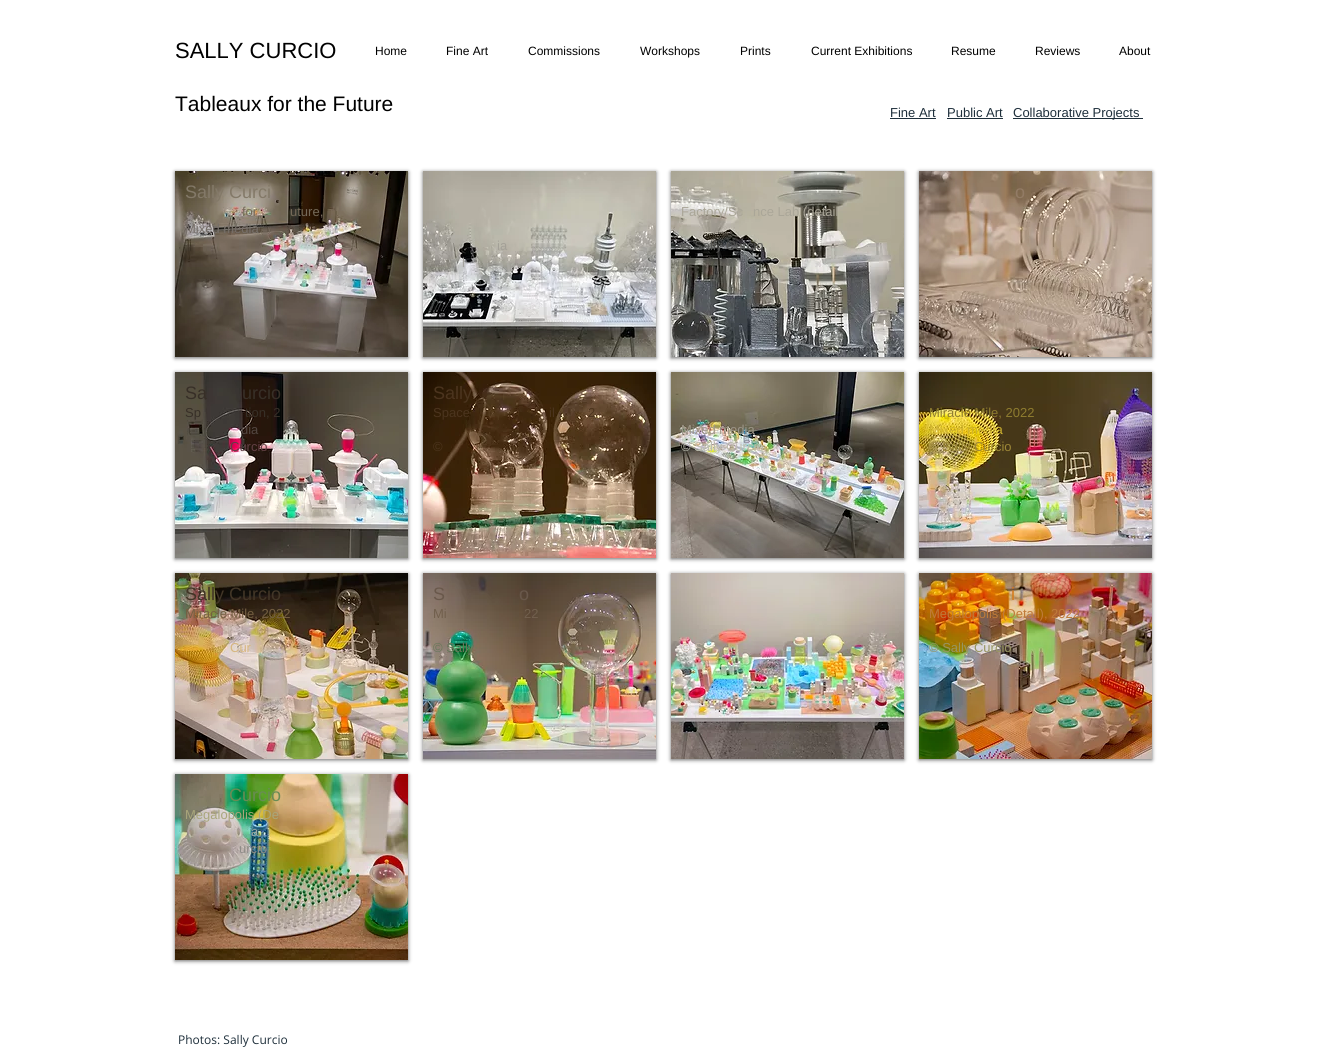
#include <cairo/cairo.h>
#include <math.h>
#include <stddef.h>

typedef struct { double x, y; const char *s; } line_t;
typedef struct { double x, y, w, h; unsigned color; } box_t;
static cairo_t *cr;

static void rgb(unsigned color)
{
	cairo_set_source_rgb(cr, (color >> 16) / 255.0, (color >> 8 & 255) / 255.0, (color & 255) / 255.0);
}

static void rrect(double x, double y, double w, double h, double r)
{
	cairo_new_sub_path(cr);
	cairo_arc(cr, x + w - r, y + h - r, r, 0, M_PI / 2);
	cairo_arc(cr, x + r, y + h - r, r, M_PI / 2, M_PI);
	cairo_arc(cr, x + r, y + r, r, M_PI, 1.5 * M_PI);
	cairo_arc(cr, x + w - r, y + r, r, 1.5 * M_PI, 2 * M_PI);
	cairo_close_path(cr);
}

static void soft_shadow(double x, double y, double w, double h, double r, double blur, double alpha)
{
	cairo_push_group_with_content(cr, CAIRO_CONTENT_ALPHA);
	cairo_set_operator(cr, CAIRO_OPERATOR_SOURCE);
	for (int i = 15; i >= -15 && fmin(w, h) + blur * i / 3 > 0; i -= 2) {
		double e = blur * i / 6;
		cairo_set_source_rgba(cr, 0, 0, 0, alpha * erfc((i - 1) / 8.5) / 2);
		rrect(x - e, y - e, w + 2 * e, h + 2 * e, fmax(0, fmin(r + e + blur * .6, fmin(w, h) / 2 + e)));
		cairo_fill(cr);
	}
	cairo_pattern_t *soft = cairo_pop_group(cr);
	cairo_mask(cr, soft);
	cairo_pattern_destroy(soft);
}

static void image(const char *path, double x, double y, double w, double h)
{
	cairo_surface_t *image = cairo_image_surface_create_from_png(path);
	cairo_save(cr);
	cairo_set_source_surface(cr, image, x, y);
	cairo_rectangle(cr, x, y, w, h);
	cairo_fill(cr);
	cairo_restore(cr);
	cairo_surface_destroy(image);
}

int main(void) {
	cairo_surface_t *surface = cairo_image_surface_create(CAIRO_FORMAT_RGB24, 1330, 1048);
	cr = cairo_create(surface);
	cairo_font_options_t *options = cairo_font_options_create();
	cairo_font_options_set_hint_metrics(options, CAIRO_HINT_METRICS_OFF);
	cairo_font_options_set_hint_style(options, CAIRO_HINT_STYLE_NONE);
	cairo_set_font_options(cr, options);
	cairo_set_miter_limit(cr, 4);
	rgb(0xffffff);
	cairo_paint(cr);
	{
		static const box_t items[] = {
			{890, 118, 46, 1, 0x1e2f3b},
			{947, 118, 56, 1, 0x1e2f3b},
			{1013, 118, 130, 1, 0x1e2f3b},
		};
		for (size_t i = 0; i < sizeof items / sizeof *items; i++) {
			rgb(items[i].color);
			cairo_rectangle(cr, items[i].x, items[i].y, items[i].w, items[i].h);
			cairo_fill(cr);
		}
	}
	rgb(0x000000);
	soft_shadow(175, 172, 233, 186, 0, 2, 0.6);
	image("img/1.png", 175, 171, 233, 186);
	soft_shadow(919, 172, 233, 186, 0, 2, 0.6);
	image("img/2.png", 919, 171, 233, 186);
	soft_shadow(423, 172, 233, 186, 0, 2, 0.6);
	image("img/3.png", 423, 171, 233, 186);
	soft_shadow(671, 172, 233, 186, 0, 2, 0.6);
	image("img/4.png", 671, 171, 233, 186);
	soft_shadow(175, 373, 233, 186, 0, 2, 0.6);
	image("img/5.png", 175, 372, 233, 186);
	soft_shadow(423, 373, 233, 186, 0, 2, 0.6);
	image("img/6.png", 423, 372, 233, 186);
	soft_shadow(671, 373, 233, 186, 0, 2, 0.6);
	image("img/7.png", 671, 372, 233, 186);
	soft_shadow(919, 373, 233, 186, 0, 2, 0.6);
	image("img/8.png", 919, 372, 233, 186);
	soft_shadow(175, 574, 233, 186, 0, 2, 0.6);
	image("img/9.png", 175, 573, 233, 186);
	soft_shadow(423, 574, 233, 186, 0, 2, 0.6);
	image("img/10.png", 423, 573, 233, 186);
	soft_shadow(671, 574, 233, 186, 0, 2, 0.6);
	image("img/11.png", 671, 573, 233, 186);
	soft_shadow(919, 574, 233, 186, 0, 2, 0.6);
	image("img/12.png", 919, 573, 233, 186);
	soft_shadow(175, 775, 233, 186, 0, 2, 0.6);
	image("img/13.png", 175, 774, 233, 186);
	cairo_select_font_face(cr, "Liberation Sans", CAIRO_FONT_SLANT_NORMAL, CAIRO_FONT_WEIGHT_NORMAL);
	cairo_set_font_size(cr, 22);
	rgb(0x000000);
	cairo_move_to(cr, 175, 58);
	cairo_show_text(cr, "SALLY CURCIO");
	cairo_set_font_size(cr, 12);
	{
		static const line_t items[] = {
			{375, 55, "Home"},
			{446, 55, "Fine Art"},
			{528, 55, "Commissions"},
			{640, 55, "Workshops"},
			{740, 55, "Prints"},
			{811, 55, "Current Exhibitions"},
			{951, 55, "Resume"},
			{1035, 55, "Reviews"},
			{1119, 55, "About"},
		};
		for (size_t i = 0; i < sizeof items / sizeof *items; i++) {
			cairo_move_to(cr, items[i].x, items[i].y);
			cairo_show_text(cr, items[i].s);
		}
	}
	cairo_set_font_size(cr, 21);
	cairo_move_to(cr, 175, 111);
	cairo_show_text(cr, "Tableaux for the Future");
	cairo_set_font_size(cr, 13);
	rgb(0x1e2f3b);
	{
		static const line_t items[] = {
			{890, 117, "Fine Art"},
			{947, 117, "Public Art"},
			{1013, 117, "Collaborative Projects"},
		};
		for (size_t i = 0; i < sizeof items / sizeof *items; i++) {
			cairo_move_to(cr, items[i].x, items[i].y);
			cairo_show_text(cr, items[i].s);
		}
	}
	cairo_set_font_size(cr, 18);
	rgb(0x837968);
	cairo_move_to(cr, 185, 198);
	cairo_show_text(cr, "Sally Curci");
	cairo_set_font_size(cr, 13);
	rgb(0x756a59);
	cairo_move_to(cr, 242, 216);
	cairo_show_text(cr, "for");
	cairo_move_to(cr, 290, 216);
	cairo_show_text(cr, "uture,");
	rgb(0x766f69);
	cairo_move_to(cr, 185, 233);
	cairo_show_text(cr, "Mixed media");
	cairo_set_font_size(cr, 18);
	rgb(0x927b65);
	cairo_move_to(cr, 1015, 198);
	cairo_show_text(cr, "o");
	cairo_set_font_size(cr, 13);
	rgb(0xa3a097);
	cairo_move_to(cr, 497, 250);
	cairo_show_text(cr, "ia");
	rgb(0xa4a39e);
	cairo_move_to(cr, 462, 267);
	cairo_show_text(cr, "l");
	rgb(0xaaa698);
	cairo_move_to(cr, 681, 216);
	cairo_show_text(cr, "Factory/Sc");
	cairo_move_to(cr, 753, 216);
	cairo_show_text(cr, "nce Lab (detail");
	rgb(0x565654);
	cairo_move_to(cr, 681, 250);
	cairo_show_text(cr, "© Sally Curcio");
	cairo_set_font_size(cr, 18);
	rgb(0x372f27);
	cairo_move_to(cr, 185, 399);
	cairo_show_text(cr, "Sa");
	cairo_move_to(cr, 242, 399);
	cairo_show_text(cr, "urcio");
	cairo_set_font_size(cr, 13);
	cairo_move_to(cr, 185, 417);
	cairo_show_text(cr, "Sp");
	cairo_move_to(cr, 245, 417);
	cairo_show_text(cr, "tion, 2");
	rgb(0x524641);
	cairo_move_to(cr, 241, 434);
	cairo_show_text(cr, "dia");
	rgb(0x623f44);
	cairo_move_to(cr, 230, 451);
	cairo_show_text(cr, "Curcio");
	cairo_set_font_size(cr, 18);
	rgb(0x4b341e);
	cairo_move_to(cr, 433, 399);
	cairo_show_text(cr, "Sally");
	cairo_set_font_size(cr, 13);
	{
		static const line_t items[] = {
			{433, 417, "Space"},
			{549, 417, "il"},
			{588, 417, "2"},
			{433, 451, "©"},
		};
		for (size_t i = 0; i < sizeof items / sizeof *items; i++) {
			cairo_move_to(cr, items[i].x, items[i].y);
			cairo_show_text(cr, items[i].s);
		}
	}
	rgb(0x9c9587);
	cairo_move_to(cr, 681, 434);
	cairo_show_text(cr, "Mixed media");
	rgb(0xbcbdaf);
	cairo_move_to(cr, 681, 451);
	cairo_show_text(cr, "© Sally Curcio");
	rgb(0x8e7c2f);
	cairo_move_to(cr, 929, 417);
	cairo_show_text(cr, "Miracle Mile, 2022");
	rgb(0xceb22e);
	cairo_move_to(cr, 929, 434);
	cairo_show_text(cr, "Mixed media");
	rgb(0x9c8736);
	cairo_move_to(cr, 929, 451);
	cairo_show_text(cr, "© Sally Curcio");
	cairo_set_font_size(cr, 18);
	rgb(0x423627);
	cairo_move_to(cr, 185, 600);
	cairo_show_text(cr, "Sally Curcio");
	cairo_set_font_size(cr, 13);
	rgb(0x745f42);
	cairo_move_to(cr, 185, 618);
	cairo_show_text(cr, "Miracle Mile, 2022");
	rgb(0xd6b67e);
	cairo_move_to(cr, 230, 652);
	cairo_show_text(cr, "Cur");
	cairo_set_font_size(cr, 18);
	rgb(0x69584b);
	cairo_move_to(cr, 433, 600);
	cairo_show_text(cr, "S");
	cairo_move_to(cr, 519, 600);
	cairo_show_text(cr, "o");
	cairo_set_font_size(cr, 13);
	rgb(0x715f4d);
	cairo_move_to(cr, 433, 618);
	cairo_show_text(cr, "Mi");
	cairo_move_to(cr, 524, 618);
	cairo_show_text(cr, "22");
	rgb(0x667659);
	cairo_move_to(cr, 433, 652);
	cairo_show_text(cr, "© Sally");
	rgb(0xc0b2a5);
	cairo_move_to(cr, 681, 652);
	cairo_show_text(cr, "© S");
	cairo_set_font_size(cr, 18);
	rgb(0xd47b1b);
	cairo_move_to(cr, 1011, 600);
	cairo_show_text(cr, "i");
	cairo_set_font_size(cr, 13);
	rgb(0xbf7b39);
	cairo_move_to(cr, 929, 618);
	cairo_show_text(cr, "Megalopolis (Detail), 2022");
	rgb(0x989560);
	cairo_move_to(cr, 929, 652);
	cairo_show_text(cr, "© Sally Curcio");
	cairo_set_font_size(cr, 18);
	rgb(0x698c54);
	cairo_move_to(cr, 229, 801);
	cairo_show_text(cr, "Curcio");
	cairo_set_font_size(cr, 13);
	rgb(0xa9a67b);
	cairo_move_to(cr, 185, 819);
	cairo_show_text(cr, "Megalopolis (De");
	rgb(0x9da9a2);
	cairo_move_to(cr, 251, 836);
	cairo_show_text(cr, "a");
	rgb(0x8e8c88);
	cairo_move_to(cr, 239, 853);
	cairo_show_text(cr, "urcio");
	cairo_select_font_face(cr, "Open Sans", CAIRO_FONT_SLANT_NORMAL, CAIRO_FONT_WEIGHT_NORMAL);
	cairo_set_font_size(cr, 12);
	rgb(0x1e2f3b);
	cairo_move_to(cr, 178, 1044);
	cairo_show_text(cr, "Photos: Sally Curcio");
	cairo_surface_write_to_png(surface, "page.png");
	cairo_font_options_destroy(options);
	cairo_destroy(cr);
	cairo_surface_destroy(surface);
	return 0;
}
